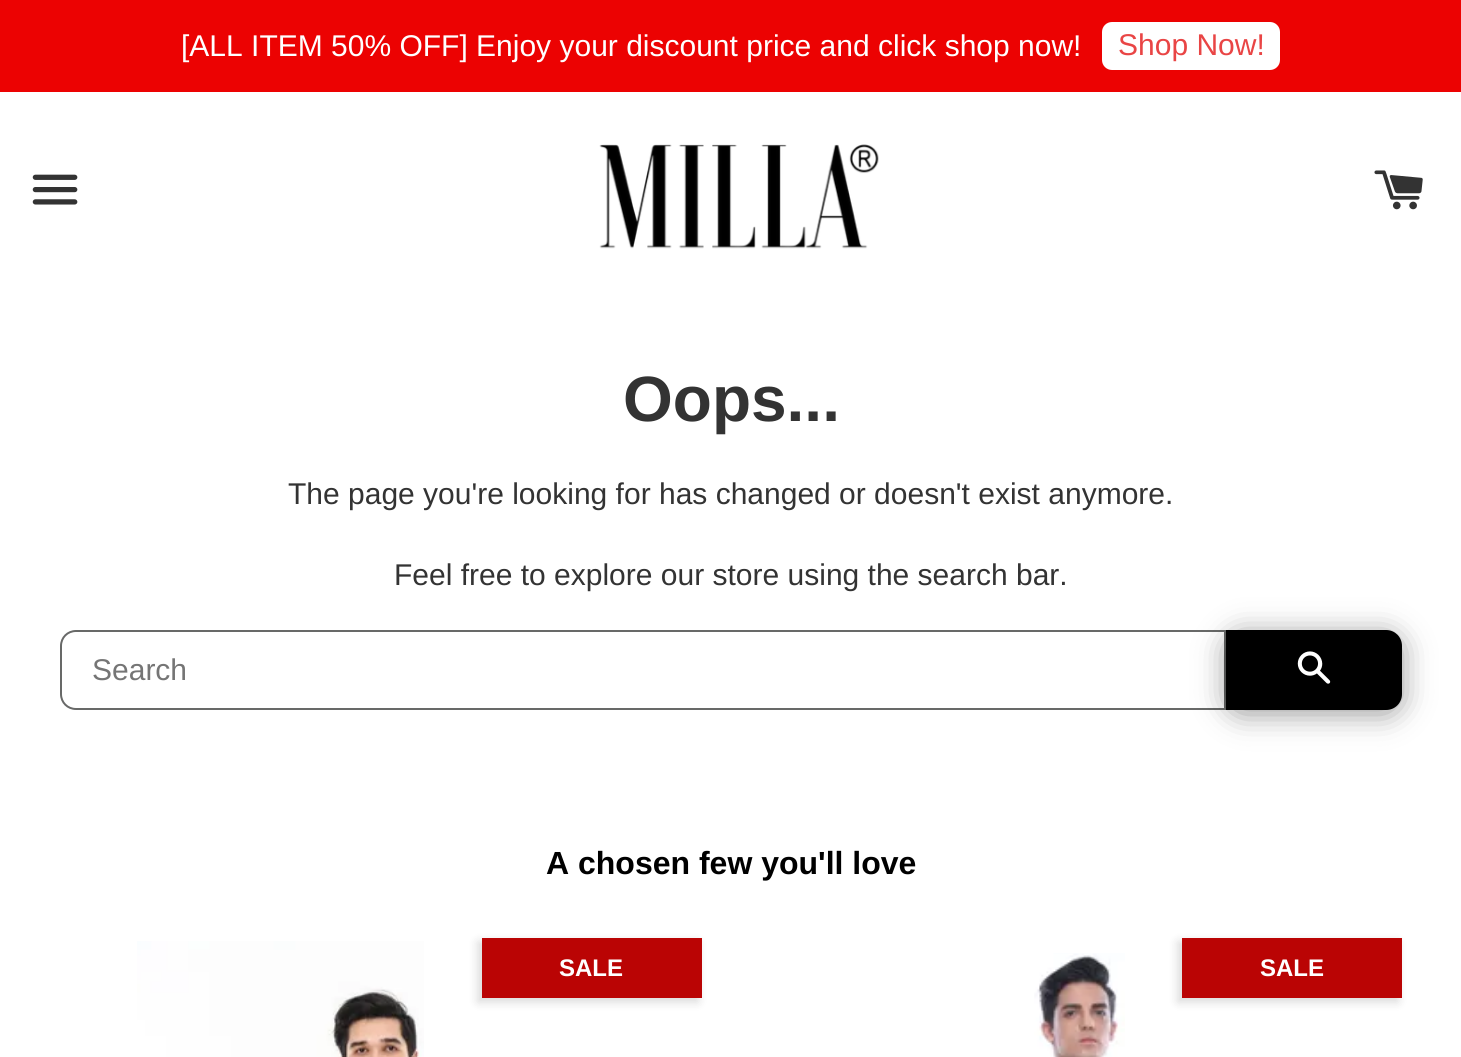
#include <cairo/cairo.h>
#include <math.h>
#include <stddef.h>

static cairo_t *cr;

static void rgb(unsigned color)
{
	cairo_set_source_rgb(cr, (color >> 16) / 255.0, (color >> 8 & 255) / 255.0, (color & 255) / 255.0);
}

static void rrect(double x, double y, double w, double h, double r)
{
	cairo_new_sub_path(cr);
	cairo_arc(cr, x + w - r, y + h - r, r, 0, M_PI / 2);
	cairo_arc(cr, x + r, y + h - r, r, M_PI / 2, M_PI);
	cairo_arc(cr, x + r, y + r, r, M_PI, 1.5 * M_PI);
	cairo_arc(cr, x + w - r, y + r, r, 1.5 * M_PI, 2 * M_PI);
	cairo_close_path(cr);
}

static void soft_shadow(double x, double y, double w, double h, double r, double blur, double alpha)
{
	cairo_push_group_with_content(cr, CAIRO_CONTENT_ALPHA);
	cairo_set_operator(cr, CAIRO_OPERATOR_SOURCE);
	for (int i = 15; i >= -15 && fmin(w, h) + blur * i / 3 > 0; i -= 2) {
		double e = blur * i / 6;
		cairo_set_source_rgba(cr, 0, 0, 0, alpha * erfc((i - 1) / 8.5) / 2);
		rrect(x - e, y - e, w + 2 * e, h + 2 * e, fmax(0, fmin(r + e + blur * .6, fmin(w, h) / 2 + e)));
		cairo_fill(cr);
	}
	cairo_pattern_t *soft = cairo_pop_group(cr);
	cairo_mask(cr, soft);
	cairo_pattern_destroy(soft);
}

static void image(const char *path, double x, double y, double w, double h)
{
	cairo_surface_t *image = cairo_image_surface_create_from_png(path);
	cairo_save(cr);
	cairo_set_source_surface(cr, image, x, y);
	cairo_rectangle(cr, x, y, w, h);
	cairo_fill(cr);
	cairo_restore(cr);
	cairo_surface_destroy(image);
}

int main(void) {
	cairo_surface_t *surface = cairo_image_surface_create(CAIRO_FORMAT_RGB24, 1461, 1057);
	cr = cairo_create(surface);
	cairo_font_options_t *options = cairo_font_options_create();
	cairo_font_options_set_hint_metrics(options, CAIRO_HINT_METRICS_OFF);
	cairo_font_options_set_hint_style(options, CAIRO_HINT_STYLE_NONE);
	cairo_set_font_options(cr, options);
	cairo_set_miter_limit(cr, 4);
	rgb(0xffffff);
	cairo_paint(cr);
	rgb(0xec0202);
	cairo_rectangle(cr, 0, 0, 1461, 92);
	cairo_fill(cr);
	rgb(0xffffff);
	rrect(1102, 22, 178, 48, 10);
	cairo_fill(cr);
	image("img/1.png", 32, 174, 46, 31);
	image("img/2.png", 599, 144, 280, 105);
	image("img/3.png", 1374, 170, 49, 40);
	cairo_new_path(cr);
	cairo_move_to(cr, 76, 631);
	cairo_line_to(cr, 1225, 631);
	cairo_line_to(cr, 1225, 709);
	cairo_line_to(cr, 76, 709);
	cairo_curve_to(cr, 67.5, 709, 61, 702.5, 61, 694);
	cairo_line_to(cr, 61, 646);
	cairo_curve_to(cr, 61, 637.5, 67.5, 631, 76, 631);
	cairo_close_path(cr);
	rgb(0x686968);
	cairo_stroke(cr);
	rgb(0x000000);
	soft_shadow(1226, 634, 176, 80, 16, 15, 0.4);
	rgb(0x000000);
	cairo_new_path(cr);
	cairo_move_to(cr, 1226, 630);
	cairo_line_to(cr, 1386, 630);
	cairo_curve_to(cr, 1395, 630, 1402, 637, 1402, 646);
	cairo_line_to(cr, 1402, 694);
	cairo_curve_to(cr, 1402, 703, 1395, 710, 1386, 710);
	cairo_line_to(cr, 1226, 710);
	cairo_close_path(cr);
	cairo_fill(cr);
	image("img/4.png", 1297, 651, 34, 33);
	image("img/5.png", 137, 941, 287, 116);
	rgb(0x000000);
	soft_shadow(478, 942, 220, 60, 0, 5, 0.15);
	rgb(0xba0404);
	cairo_rectangle(cr, 482, 938, 220, 60);
	cairo_fill(cr);
	image("img/6.png", 1034, 953, 91, 104);
	rgb(0x000000);
	soft_shadow(1178, 942, 220, 60, 0, 5, 0.15);
	rgb(0xba0404);
	cairo_rectangle(cr, 1182, 938, 220, 60);
	cairo_fill(cr);
	cairo_select_font_face(cr, "Liberation Sans", CAIRO_FONT_SLANT_NORMAL, CAIRO_FONT_WEIGHT_NORMAL);
	cairo_set_font_size(cr, 30);
	rgb(0xffffff);
	cairo_move_to(cr, 181, 56);
	cairo_show_text(cr, "[ALL ITEM 50% OFF] Enjoy your discount price and click shop now!");
	rgb(0xe94545);
	cairo_move_to(cr, 1118, 55);
	cairo_show_text(cr, "Shop Now!");
	cairo_select_font_face(cr, "Liberation Sans", CAIRO_FONT_SLANT_NORMAL, CAIRO_FONT_WEIGHT_BOLD);
	cairo_set_font_size(cr, 64);
	rgb(0x333333);
	cairo_move_to(cr, 623, 421);
	cairo_show_text(cr, "Oops...");
	cairo_select_font_face(cr, "Liberation Sans", CAIRO_FONT_SLANT_NORMAL, CAIRO_FONT_WEIGHT_NORMAL);
	cairo_set_font_size(cr, 30);
	cairo_move_to(cr, 288, 504);
	cairo_show_text(cr, "The page you're looking for has changed or doesn't exist anymore.");
	cairo_move_to(cr, 394, 585);
	cairo_show_text(cr, "Feel free to explore our store using the search bar.");
	rgb(0x757575);
	cairo_move_to(cr, 92, 680);
	cairo_show_text(cr, "Search");
	cairo_select_font_face(cr, "Liberation Sans", CAIRO_FONT_SLANT_NORMAL, CAIRO_FONT_WEIGHT_BOLD);
	cairo_set_font_size(cr, 32);
	rgb(0x000000);
	cairo_move_to(cr, 546, 874);
	cairo_show_text(cr, "A chosen few you'll love");
	cairo_set_font_size(cr, 24);
	rgb(0xffffff);
	cairo_move_to(cr, 559, 976);
	cairo_show_text(cr, "SALE");
	cairo_move_to(cr, 1260, 976);
	cairo_show_text(cr, "SALE");
	cairo_surface_write_to_png(surface, "page.png");
	cairo_font_options_destroy(options);
	cairo_destroy(cr);
	cairo_surface_destroy(surface);
	return 0;
}
